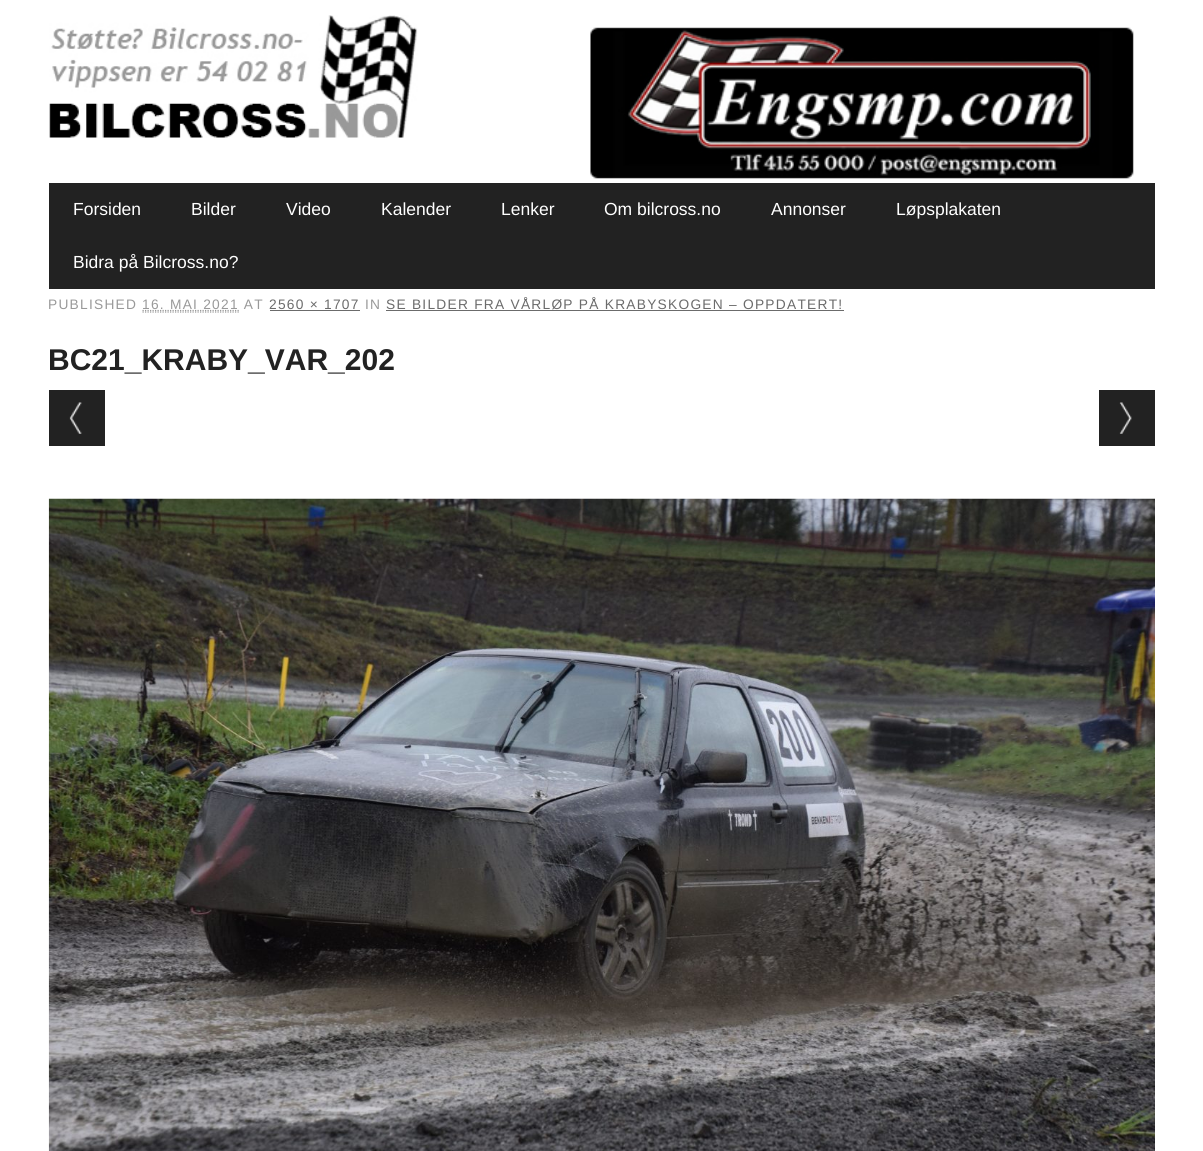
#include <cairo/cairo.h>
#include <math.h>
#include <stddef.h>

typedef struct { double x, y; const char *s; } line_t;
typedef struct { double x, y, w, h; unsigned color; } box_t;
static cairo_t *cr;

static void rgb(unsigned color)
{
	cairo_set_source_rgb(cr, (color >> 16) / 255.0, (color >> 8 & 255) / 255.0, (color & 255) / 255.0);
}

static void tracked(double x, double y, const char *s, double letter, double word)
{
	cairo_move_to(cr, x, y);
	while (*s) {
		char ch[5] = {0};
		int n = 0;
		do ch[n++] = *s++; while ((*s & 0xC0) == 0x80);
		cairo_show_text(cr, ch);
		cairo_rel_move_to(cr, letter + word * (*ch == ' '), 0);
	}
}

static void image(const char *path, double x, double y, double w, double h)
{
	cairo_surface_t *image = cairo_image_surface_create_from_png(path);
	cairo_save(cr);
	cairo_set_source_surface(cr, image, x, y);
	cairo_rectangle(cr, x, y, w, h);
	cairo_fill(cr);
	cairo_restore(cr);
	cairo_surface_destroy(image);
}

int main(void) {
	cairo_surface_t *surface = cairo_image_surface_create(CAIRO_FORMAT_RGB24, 1203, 1151);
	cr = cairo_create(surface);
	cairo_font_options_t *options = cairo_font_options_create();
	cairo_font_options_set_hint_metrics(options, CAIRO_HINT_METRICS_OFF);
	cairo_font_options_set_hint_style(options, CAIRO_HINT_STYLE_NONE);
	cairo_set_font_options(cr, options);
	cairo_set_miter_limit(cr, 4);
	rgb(0xffffff);
	cairo_paint(cr);
	image("img/1.png", 49, 15, 369, 123);
	image("img/2.png", 590, 27, 544, 152);
	rgb(0x222222);
	cairo_rectangle(cr, 49, 183, 1106, 106);
	cairo_fill(cr);
	cairo_new_path(cr);
	cairo_move_to(cr, 142.5, 312);
	cairo_line_to(cr, 239, 312);
	rgb(0x999999);
	cairo_set_line_width(cr, 1.2);
	cairo_set_dash(cr, (double[]){1.25, 1.25}, 2, 0);
	cairo_stroke(cr);
	cairo_new_path(cr);
	cairo_move_to(cr, 142.5, 310.5);
	cairo_line_to(cr, 239, 310.5);
	cairo_stroke(cr);
	{
		static const box_t items[] = {
			{270, 310, 90, 1, 0x6b6b6b},
			{386, 310, 458, 1, 0x6b6b6b},
			{49, 390, 56, 56, 0x222222},
		};
		for (size_t i = 0; i < sizeof items / sizeof *items; i++) {
			rgb(items[i].color);
			cairo_rectangle(cr, items[i].x, items[i].y, items[i].w, items[i].h);
			cairo_fill(cr);
		}
	}
	image("img/3.png", 69, 402, 13, 32);
	cairo_rectangle(cr, 1099, 390, 56, 56);
	cairo_fill(cr);
	image("img/4.png", 1119, 402, 13, 32);
	image("img/5.png", 48, 498, 1107, 653);
	cairo_select_font_face(cr, "Liberation Sans", CAIRO_FONT_SLANT_NORMAL, CAIRO_FONT_WEIGHT_NORMAL);
	cairo_set_font_size(cr, 17.5);
	rgb(0xffffff);
	{
		static const line_t items[] = {
			{73, 215, "Forsiden"},
			{191, 215, "Bilder"},
			{286, 215, "Video"},
			{381, 215, "Kalender"},
			{501, 215, "Lenker"},
			{604, 215, "Om bilcross.no"},
			{771, 215, "Annonser"},
			{896, 215, "Løpsplakaten"},
			{73, 268, "Bidra på Bilcross.no?"},
		};
		for (size_t i = 0; i < sizeof items / sizeof *items; i++) {
			cairo_move_to(cr, items[i].x, items[i].y);
			cairo_show_text(cr, items[i].s);
		}
	}
	cairo_set_font_size(cr, 13.75);
	rgb(0x999999);
	tracked(48, 309, "PUBLISHED", 1.25, 0);
	tracked(142, 309, "16. MAI 2021 AT", 1.25, 0);
	rgb(0x6b6b6b);
	tracked(269, 309, "2560 × 1707", 1.25, 0);
	rgb(0x999999);
	tracked(365, 309, "IN", 1.25, 0);
	rgb(0x6b6b6b);
	tracked(386, 309, "SE BILDER FRA VÅRLØP PÅ KRABYSKOGEN – OPPDATERT!", 1.25, 0);
	cairo_select_font_face(cr, "Liberation Sans", CAIRO_FONT_SLANT_NORMAL, CAIRO_FONT_WEIGHT_BOLD);
	cairo_set_font_size(cr, 30);
	rgb(0x222222);
	cairo_move_to(cr, 48, 370);
	cairo_show_text(cr, "BC21_KRABY_VAR_202");
	cairo_surface_write_to_png(surface, "page.png");
	cairo_font_options_destroy(options);
	cairo_destroy(cr);
	cairo_surface_destroy(surface);
	return 0;
}
